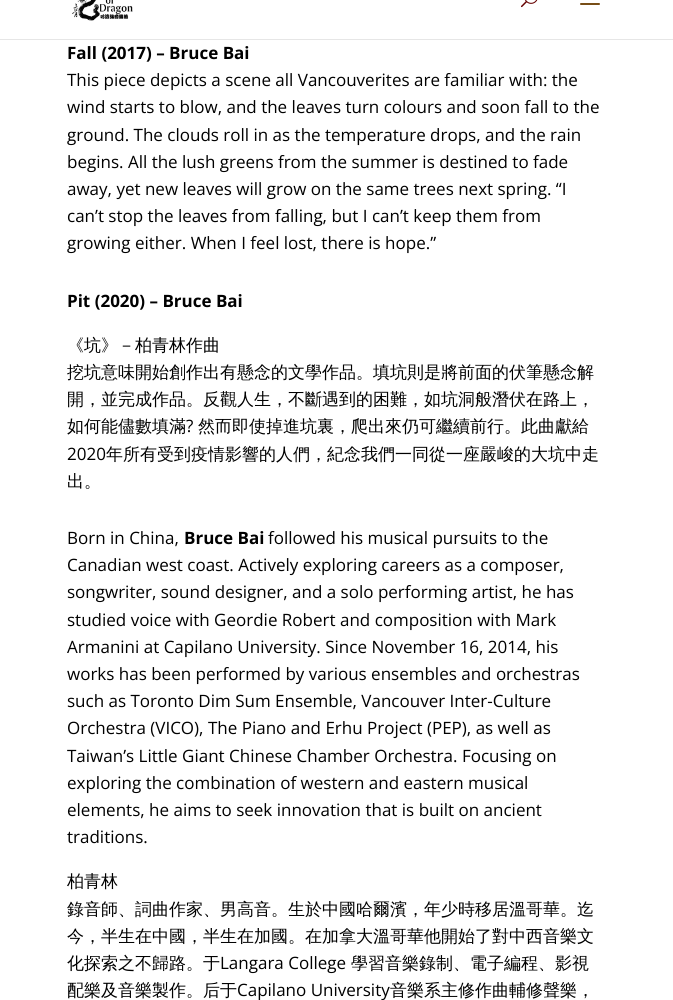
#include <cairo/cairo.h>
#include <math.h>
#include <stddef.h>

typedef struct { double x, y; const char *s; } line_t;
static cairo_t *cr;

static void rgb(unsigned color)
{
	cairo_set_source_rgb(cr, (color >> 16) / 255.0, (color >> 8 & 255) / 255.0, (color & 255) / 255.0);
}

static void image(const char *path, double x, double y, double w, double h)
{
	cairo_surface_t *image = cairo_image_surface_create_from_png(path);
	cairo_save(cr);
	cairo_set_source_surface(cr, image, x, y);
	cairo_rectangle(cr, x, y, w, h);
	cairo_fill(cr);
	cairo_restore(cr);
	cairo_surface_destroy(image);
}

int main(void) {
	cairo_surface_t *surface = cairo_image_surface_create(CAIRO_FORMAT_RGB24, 673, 1000);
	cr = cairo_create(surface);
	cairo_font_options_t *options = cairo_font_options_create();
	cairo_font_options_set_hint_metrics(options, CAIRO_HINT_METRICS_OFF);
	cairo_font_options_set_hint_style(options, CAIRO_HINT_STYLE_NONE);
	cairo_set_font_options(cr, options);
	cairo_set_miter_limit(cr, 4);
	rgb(0xffffff);
	cairo_paint(cr);
	rgb(0xe6e6e6);
	cairo_rectangle(cr, 0, 39, 673, 1);
	cairo_fill(cr);
	image("img/1.png", 72, 0, 61, 21);
	image("img/2.png", 521, 0, 17, 8);
	image("img/3.png", 580, 3, 20, 2);
	cairo_select_font_face(cr, "Open Sans", CAIRO_FONT_SLANT_NORMAL, CAIRO_FONT_WEIGHT_BOLD);
	cairo_set_font_size(cr, 17);
	rgb(0x000000);
	cairo_move_to(cr, 67, 59);
	cairo_show_text(cr, "Fall (2017) – Bruce Bai");
	cairo_select_font_face(cr, "Open Sans", CAIRO_FONT_SLANT_NORMAL, CAIRO_FONT_WEIGHT_NORMAL);
	{
		static const line_t items[] = {
			{67, 86, "This piece depicts a scene all Vancouverites are familiar with: the"},
			{67, 113, "wind starts to blow, and the leaves turn colours and soon fall to the"},
			{67, 141, "ground. The clouds roll in as the temperature drops, and the rain"},
			{67, 168, "begins. All the lush greens from the summer is destined to fade"},
			{67, 195, "away, yet new leaves will grow on the same trees next spring. “I"},
			{67, 222, "can’t stop the leaves from falling, but I can’t keep them from"},
			{67, 249, "growing either. When I feel lost, there is hope.”"},
		};
		for (size_t i = 0; i < sizeof items / sizeof *items; i++) {
			cairo_move_to(cr, items[i].x, items[i].y);
			cairo_show_text(cr, items[i].s);
		}
	}
	cairo_select_font_face(cr, "Open Sans", CAIRO_FONT_SLANT_NORMAL, CAIRO_FONT_WEIGHT_BOLD);
	cairo_move_to(cr, 67, 307);
	cairo_show_text(cr, "Pit (2020) – Bruce Bai");
	cairo_select_font_face(cr, "WenQuanYi Zen Hei Medium", CAIRO_FONT_SLANT_NORMAL, CAIRO_FONT_WEIGHT_NORMAL);
	{
		static const line_t items[] = {
			{67, 351, "《坑》－柏青林作曲"},
			{67, 378, "挖坑意味開始創作出有懸念的文學作品。填坑則是將前面的伏筆懸念解"},
			{67, 405, "開，並完成作品。反觀人生，不斷遇到的困難，如坑洞般潛伏在路上，"},
			{67, 432, "如何能儘數填滿"},
		};
		for (size_t i = 0; i < sizeof items / sizeof *items; i++) {
			cairo_move_to(cr, items[i].x, items[i].y);
			cairo_show_text(cr, items[i].s);
		}
	}
	cairo_select_font_face(cr, "Open Sans", CAIRO_FONT_SLANT_NORMAL, CAIRO_FONT_WEIGHT_NORMAL);
	cairo_move_to(cr, 186, 432);
	cairo_show_text(cr, "?");
	cairo_select_font_face(cr, "WenQuanYi Zen Hei Medium", CAIRO_FONT_SLANT_NORMAL, CAIRO_FONT_WEIGHT_NORMAL);
	cairo_move_to(cr, 198, 432);
	cairo_show_text(cr, "然而即使掉進坑裏，爬出來仍可繼續前行。此曲獻給");
	cairo_select_font_face(cr, "Open Sans", CAIRO_FONT_SLANT_NORMAL, CAIRO_FONT_WEIGHT_NORMAL);
	cairo_move_to(cr, 67, 460);
	cairo_show_text(cr, "2020");
	cairo_select_font_face(cr, "WenQuanYi Zen Hei Medium", CAIRO_FONT_SLANT_NORMAL, CAIRO_FONT_WEIGHT_NORMAL);
	cairo_move_to(cr, 106, 460);
	cairo_show_text(cr, "年所有受到疫情影響的人們，紀念我們一同從一座嚴峻的大坑中走");
	cairo_move_to(cr, 67, 487);
	cairo_show_text(cr, "出。");
	cairo_select_font_face(cr, "Open Sans", CAIRO_FONT_SLANT_NORMAL, CAIRO_FONT_WEIGHT_NORMAL);
	cairo_move_to(cr, 67, 544);
	cairo_show_text(cr, "Born in China,");
	cairo_select_font_face(cr, "Open Sans", CAIRO_FONT_SLANT_NORMAL, CAIRO_FONT_WEIGHT_BOLD);
	cairo_move_to(cr, 184, 544);
	cairo_show_text(cr, "Bruce Bai");
	cairo_select_font_face(cr, "Open Sans", CAIRO_FONT_SLANT_NORMAL, CAIRO_FONT_WEIGHT_NORMAL);
	{
		static const line_t items[] = {
			{268, 544, "followed his musical pursuits to the"},
			{67, 571, "Canadian west coast. Actively exploring careers as a composer,"},
			{67, 598, "songwriter, sound designer, and a solo performing artist, he has"},
			{67, 626, "studied voice with Geordie Robert and composition with Mark"},
			{67, 653, "Armanini at Capilano University. Since November 16, 2014, his"},
			{67, 680, "works has been performed by various ensembles and orchestras"},
			{67, 707, "such as Toronto Dim Sum Ensemble, Vancouver Inter-Culture"},
			{67, 734, "Orchestra (VICO), The Piano and Erhu Project (PEP), as well as"},
			{67, 762, "Taiwan’s Little Giant Chinese Chamber Orchestra. Focusing on"},
			{67, 789, "exploring the combination of western and eastern musical"},
			{67, 816, "elements, he aims to seek innovation that is built on ancient"},
			{67, 843, "traditions."},
		};
		for (size_t i = 0; i < sizeof items / sizeof *items; i++) {
			cairo_move_to(cr, items[i].x, items[i].y);
			cairo_show_text(cr, items[i].s);
		}
	}
	cairo_select_font_face(cr, "WenQuanYi Zen Hei Medium", CAIRO_FONT_SLANT_NORMAL, CAIRO_FONT_WEIGHT_NORMAL);
	{
		static const line_t items[] = {
			{67, 887, "柏青林"},
			{67, 915, "錄音師、詞曲作家、男高音。生於中國哈爾濱，年少時移居溫哥華。迄"},
			{67, 942, "今，半生在中國，半生在加國。在加拿大溫哥華他開始了對中西音樂文"},
			{67, 969, "化探索之不歸路。于"},
		};
		for (size_t i = 0; i < sizeof items / sizeof *items; i++) {
			cairo_move_to(cr, items[i].x, items[i].y);
			cairo_show_text(cr, items[i].s);
		}
	}
	cairo_select_font_face(cr, "Open Sans", CAIRO_FONT_SLANT_NORMAL, CAIRO_FONT_WEIGHT_NORMAL);
	cairo_move_to(cr, 220, 969);
	cairo_show_text(cr, "Langara College");
	cairo_select_font_face(cr, "WenQuanYi Zen Hei Medium", CAIRO_FONT_SLANT_NORMAL, CAIRO_FONT_WEIGHT_NORMAL);
	cairo_move_to(cr, 351, 969);
	cairo_show_text(cr, "學習音樂錄制、電子編程、影視");
	cairo_move_to(cr, 67, 996);
	cairo_show_text(cr, "配樂及音樂製作。后于");
	cairo_select_font_face(cr, "Open Sans", CAIRO_FONT_SLANT_NORMAL, CAIRO_FONT_WEIGHT_NORMAL);
	cairo_move_to(cr, 237, 996);
	cairo_show_text(cr, "Capilano University");
	cairo_select_font_face(cr, "WenQuanYi Zen Hei Medium", CAIRO_FONT_SLANT_NORMAL, CAIRO_FONT_WEIGHT_NORMAL);
	cairo_move_to(cr, 390, 996);
	cairo_show_text(cr, "音樂系主修作曲輔修聲樂，");
	cairo_surface_write_to_png(surface, "page.png");
	cairo_font_options_destroy(options);
	cairo_destroy(cr);
	cairo_surface_destroy(surface);
	return 0;
}
